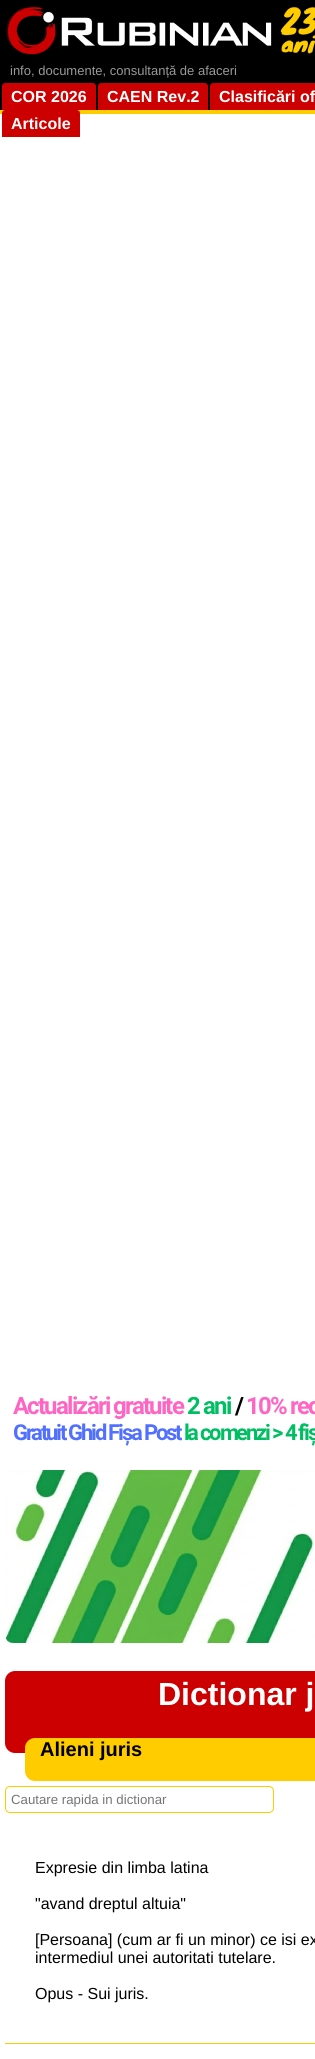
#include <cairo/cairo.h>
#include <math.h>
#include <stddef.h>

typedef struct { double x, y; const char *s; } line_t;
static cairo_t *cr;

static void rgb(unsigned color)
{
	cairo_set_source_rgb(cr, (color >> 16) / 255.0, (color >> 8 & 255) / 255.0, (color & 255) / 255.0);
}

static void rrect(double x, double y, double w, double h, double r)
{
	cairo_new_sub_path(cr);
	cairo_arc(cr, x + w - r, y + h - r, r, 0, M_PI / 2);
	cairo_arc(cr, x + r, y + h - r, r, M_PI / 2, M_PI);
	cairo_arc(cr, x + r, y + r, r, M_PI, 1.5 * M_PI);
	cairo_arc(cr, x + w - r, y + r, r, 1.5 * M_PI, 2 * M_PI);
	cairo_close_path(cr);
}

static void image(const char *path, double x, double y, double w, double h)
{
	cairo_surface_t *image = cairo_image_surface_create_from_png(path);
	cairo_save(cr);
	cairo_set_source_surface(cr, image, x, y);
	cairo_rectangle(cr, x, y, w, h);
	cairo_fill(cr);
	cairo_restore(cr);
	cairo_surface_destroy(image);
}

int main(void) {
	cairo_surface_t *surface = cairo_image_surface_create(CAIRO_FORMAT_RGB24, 315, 2059);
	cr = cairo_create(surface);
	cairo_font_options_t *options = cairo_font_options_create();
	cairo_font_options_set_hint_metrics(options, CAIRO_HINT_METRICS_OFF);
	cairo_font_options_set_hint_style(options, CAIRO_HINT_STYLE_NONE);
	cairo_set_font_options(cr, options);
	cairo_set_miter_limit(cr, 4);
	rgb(0xffffff);
	cairo_paint(cr);
	rgb(0x000000);
	cairo_rectangle(cr, 0, 0, 315, 110);
	cairo_fill(cr);
	image("img/1.png", 6, 6, 309, 49);
	rgb(0xcc0000);
	cairo_new_path(cr);
	cairo_move_to(cr, 5, 83);
	cairo_line_to(cr, 93, 83);
	cairo_curve_to(cr, 94.5, 83, 96, 84.5, 96, 86);
	cairo_line_to(cr, 96, 110);
	cairo_line_to(cr, 2, 110);
	cairo_line_to(cr, 2, 86);
	cairo_curve_to(cr, 2, 84.5, 3.5, 83, 5, 83);
	cairo_close_path(cr);
	cairo_fill(cr);
	cairo_new_path(cr);
	cairo_move_to(cr, 101, 83);
	cairo_line_to(cr, 205, 83);
	cairo_curve_to(cr, 206.5, 83, 208, 84.5, 208, 86);
	cairo_line_to(cr, 208, 110);
	cairo_line_to(cr, 98, 110);
	cairo_line_to(cr, 98, 86);
	cairo_curve_to(cr, 98, 84.5, 99.5, 83, 101, 83);
	cairo_close_path(cr);
	cairo_fill(cr);
	cairo_new_path(cr);
	cairo_move_to(cr, 213, 83);
	cairo_line_to(cr, 315, 83);
	cairo_curve_to(cr, 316.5, 83, 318, 84.5, 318, 86);
	cairo_line_to(cr, 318, 110);
	cairo_line_to(cr, 210, 110);
	cairo_line_to(cr, 210, 86);
	cairo_curve_to(cr, 210, 84.5, 211.5, 83, 213, 83);
	cairo_close_path(cr);
	cairo_fill(cr);
	rgb(0xffcc00);
	cairo_rectangle(cr, 0, 110, 315, 4);
	cairo_fill(cr);
	rgb(0xcc0000);
	cairo_new_path(cr);
	cairo_move_to(cr, 5, 110);
	cairo_line_to(cr, 77, 110);
	cairo_curve_to(cr, 78.5, 110, 80, 111.5, 80, 113);
	cairo_line_to(cr, 80, 137);
	cairo_line_to(cr, 2, 137);
	cairo_line_to(cr, 2, 113);
	cairo_curve_to(cr, 2, 111.5, 3.5, 110, 5, 110);
	cairo_close_path(cr);
	cairo_fill(cr);
	image("img/2.png", 13, 1396, 302, 50);
	image("img/3.png", 5, 1470, 310, 173);
	rrect(5, 1671, 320, 82, 10);
	cairo_fill(cr);
	rgb(0xffcc00);
	rrect(25, 1738, 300, 43, 10);
	cairo_fill(cr);
	rrect(5.5, 1786.5, 268, 26, 4.5);
	cairo_set_line_width(cr, 1);
	cairo_stroke(cr);
	cairo_rectangle(cr, 5, 2043, 310, 1);
	cairo_fill(cr);
	cairo_select_font_face(cr, "Liberation Sans", CAIRO_FONT_SLANT_NORMAL, CAIRO_FONT_WEIGHT_NORMAL);
	cairo_set_font_size(cr, 13);
	rgb(0x999999);
	cairo_move_to(cr, 10, 75);
	cairo_show_text(cr, "info, documente, consultanță de afaceri");
	cairo_select_font_face(cr, "Liberation Sans", CAIRO_FONT_SLANT_NORMAL, CAIRO_FONT_WEIGHT_BOLD);
	cairo_set_font_size(cr, 16);
	rgb(0xffffff);
	{
		static const line_t items[] = {
			{11, 102, "COR 2026"},
			{107, 102, "CAEN Rev.2"},
			{219, 102, "Clasificări of"},
			{11, 129, "Articole"},
		};
		for (size_t i = 0; i < sizeof items / sizeof *items; i++) {
			cairo_move_to(cr, items[i].x, items[i].y);
			cairo_show_text(cr, items[i].s);
		}
	}
	cairo_set_font_size(cr, 32);
	cairo_move_to(cr, 158, 1705);
	cairo_show_text(cr, "Dictionar j");
	cairo_set_font_size(cr, 20);
	rgb(0x000000);
	cairo_move_to(cr, 40, 1756);
	cairo_show_text(cr, "Alieni juris");
	cairo_select_font_face(cr, "Liberation Sans", CAIRO_FONT_SLANT_NORMAL, CAIRO_FONT_WEIGHT_NORMAL);
	cairo_set_font_size(cr, 13.25);
	rgb(0x757575);
	cairo_move_to(cr, 11, 1804);
	cairo_show_text(cr, "Cautare rapida in dictionar");
	cairo_set_font_size(cr, 16);
	rgb(0x000000);
	{
		static const line_t items[] = {
			{35, 1873, "Expresie din limba latina"},
			{35, 1909, "\"avand dreptul altuia\""},
			{35, 1945, "[Persoana] (cum ar fi un minor) ce isi ex"},
			{35, 1963, "intermediul unei autoritati tutelare."},
			{35, 1999, "Opus - Sui juris."},
		};
		for (size_t i = 0; i < sizeof items / sizeof *items; i++) {
			cairo_move_to(cr, items[i].x, items[i].y);
			cairo_show_text(cr, items[i].s);
		}
	}
	cairo_surface_write_to_png(surface, "page.png");
	cairo_font_options_destroy(options);
	cairo_destroy(cr);
	cairo_surface_destroy(surface);
	return 0;
}
